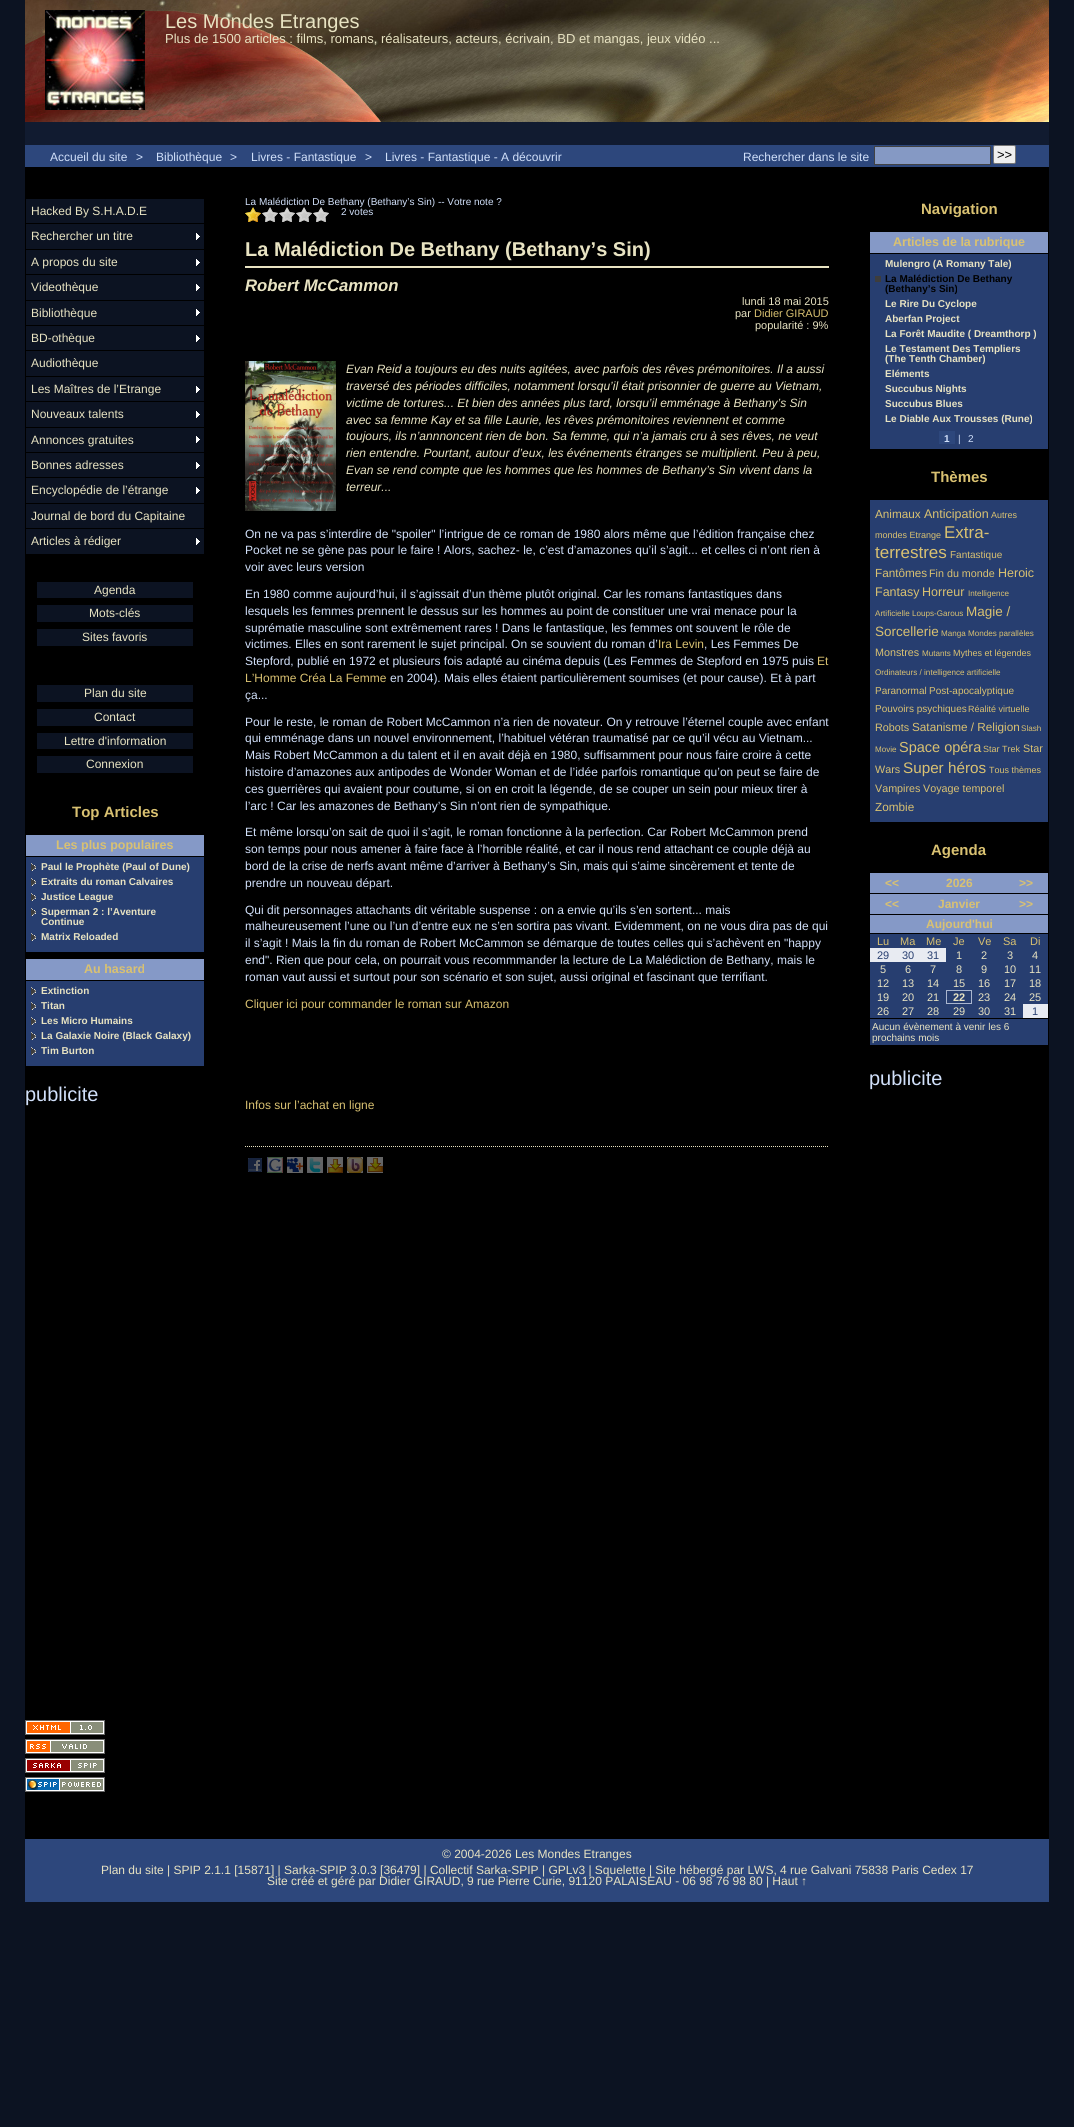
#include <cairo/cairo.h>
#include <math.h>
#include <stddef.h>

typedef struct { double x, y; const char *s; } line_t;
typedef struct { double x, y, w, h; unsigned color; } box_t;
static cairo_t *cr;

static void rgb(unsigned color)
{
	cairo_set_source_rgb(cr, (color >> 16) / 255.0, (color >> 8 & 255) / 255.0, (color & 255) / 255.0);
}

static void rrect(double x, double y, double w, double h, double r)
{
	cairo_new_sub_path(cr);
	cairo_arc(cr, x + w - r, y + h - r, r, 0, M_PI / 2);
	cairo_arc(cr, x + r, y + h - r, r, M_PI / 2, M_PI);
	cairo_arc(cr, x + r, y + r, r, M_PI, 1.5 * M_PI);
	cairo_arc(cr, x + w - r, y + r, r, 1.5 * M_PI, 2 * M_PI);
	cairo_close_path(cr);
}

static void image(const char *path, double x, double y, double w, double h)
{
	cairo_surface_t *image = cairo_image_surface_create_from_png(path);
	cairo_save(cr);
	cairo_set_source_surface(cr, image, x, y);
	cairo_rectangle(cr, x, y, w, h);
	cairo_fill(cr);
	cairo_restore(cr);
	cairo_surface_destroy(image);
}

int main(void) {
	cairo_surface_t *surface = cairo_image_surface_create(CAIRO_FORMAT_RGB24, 1074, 2127);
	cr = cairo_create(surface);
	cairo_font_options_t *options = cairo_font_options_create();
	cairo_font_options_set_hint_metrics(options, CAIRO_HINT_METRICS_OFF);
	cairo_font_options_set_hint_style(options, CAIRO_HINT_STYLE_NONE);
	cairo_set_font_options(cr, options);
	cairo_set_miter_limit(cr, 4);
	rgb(0x0c1322);
	cairo_paint(cr);
	rgb(0x000000);
	cairo_rectangle(cr, 25, 167, 1024, 1672);
	cairo_fill(cr);
	image("img/1.png", 25, 0, 1024, 122);
	image("img/2.png", 45, 10, 100, 100);
	rgb(0x111b30);
	cairo_rectangle(cr, 25, 122, 1024, 23);
	cairo_fill(cr);
	rgb(0x2d477c);
	cairo_rectangle(cr, 25, 145, 1024, 22);
	cairo_fill(cr);
	rgb(0x8599c4);
	cairo_rectangle(cr, 874.5, 146.5, 116, 18);
	cairo_fill_preserve(cr);
	rgb(0x424242);
	cairo_set_line_width(cr, 1);
	cairo_stroke(cr);
	rgb(0xefefef);
	rrect(993.5, 145.5, 22, 18, 1.5);
	cairo_fill_preserve(cr);
	rgb(0x767676);
	cairo_stroke(cr);
	{
		static const box_t items[] = {
			{26, 199, 178, 329, 0x0c1322},
			{26, 223, 178, 1, 0x000000},
			{26, 249, 178, 1, 0x000000},
		};
		for (size_t i = 0; i < sizeof items / sizeof *items; i++) {
			rgb(items[i].color);
			cairo_rectangle(cr, items[i].x, items[i].y, items[i].w, items[i].h);
			cairo_fill(cr);
		}
	}
	image("img/3.png", 196, 233, 4, 7);
	cairo_rectangle(cr, 26, 274, 178, 1);
	cairo_fill(cr);
	image("img/3.png", 196, 259, 4, 7);
	cairo_rectangle(cr, 26, 300, 178, 1);
	cairo_fill(cr);
	image("img/3.png", 196, 284, 4, 7);
	cairo_rectangle(cr, 26, 325, 178, 1);
	cairo_fill(cr);
	image("img/3.png", 196, 309, 4, 7);
	cairo_rectangle(cr, 26, 350, 178, 1);
	cairo_fill(cr);
	image("img/3.png", 196, 335, 4, 7);
	cairo_rectangle(cr, 26, 376, 178, 1);
	cairo_fill(cr);
	cairo_rectangle(cr, 26, 401, 178, 1);
	cairo_fill(cr);
	image("img/3.png", 196, 386, 4, 7);
	cairo_rectangle(cr, 26, 427, 178, 1);
	cairo_fill(cr);
	image("img/3.png", 196, 411, 4, 7);
	cairo_rectangle(cr, 26, 452, 178, 1);
	cairo_fill(cr);
	image("img/3.png", 196, 436, 4, 7);
	cairo_rectangle(cr, 26, 477, 178, 1);
	cairo_fill(cr);
	image("img/3.png", 196, 462, 4, 7);
	cairo_rectangle(cr, 26, 503, 178, 1);
	cairo_fill(cr);
	image("img/3.png", 196, 487, 4, 7);
	rgb(0x0c1322);
	cairo_rectangle(cr, 26, 529, 178, 25);
	cairo_fill(cr);
	image("img/3.png", 196, 538, 4, 7);
	{
		static const box_t items[] = {
			{37, 582, 156, 16, 0x0c1322},
			{37, 605, 156, 17, 0x0c1322},
			{37, 629, 156, 17, 0x0c1322},
			{37, 685, 156, 17, 0x0c1322},
			{37, 709, 156, 17, 0x0c1322},
			{37, 733, 156, 16, 0x0c1322},
			{37, 756, 156, 17, 0x0c1322},
			{26, 857, 178, 95, 0x273e70},
			{26, 835, 178, 21, 0x8599c7},
		};
		for (size_t i = 0; i < sizeof items / sizeof *items; i++) {
			rgb(items[i].color);
			cairo_rectangle(cr, items[i].x, items[i].y, items[i].w, items[i].h);
			cairo_fill(cr);
		}
	}
	image("img/4.png", 31, 863, 5, 8);
	image("img/4.png", 31, 878, 5, 8);
	image("img/4.png", 31, 893, 5, 8);
	image("img/4.png", 31, 908, 5, 8);
	image("img/4.png", 31, 933, 5, 8);
	rgb(0x273e70);
	cairo_rectangle(cr, 26, 981, 178, 85);
	cairo_fill(cr);
	rgb(0x8599c7);
	cairo_rectangle(cr, 26, 959, 178, 21);
	cairo_fill(cr);
	image("img/4.png", 31, 987, 5, 8);
	image("img/4.png", 31, 1002, 5, 8);
	image("img/4.png", 31, 1017, 5, 8);
	image("img/4.png", 31, 1032, 5, 8);
	image("img/4.png", 31, 1047, 5, 8);
	image("img/5.png", 25, 1720, 80, 15);
	image("img/6.png", 25, 1739, 80, 15);
	image("img/7.png", 25, 1758, 80, 15);
	image("img/8.png", 25, 1777, 80, 15);
	rgb(0xe8e3c2);
	cairo_rectangle(cr, 245, 266, 584, 2);
	cairo_fill(cr);
	image("img/11.png", 245, 361, 91, 150);
	cairo_new_path(cr);
	cairo_move_to(cr, 245, 1146.5);
	cairo_line_to(cr, 829, 1146.5);
	cairo_set_dash(cr, (double[]){1, 1}, 2, 0);
	cairo_stroke(cr);
	image("img/12.png", 248, 1158, 14, 14);
	image("img/13.png", 267, 1157, 16, 16);
	image("img/14.png", 287, 1157, 16, 16);
	image("img/15.png", 307, 1157, 16, 16);
	image("img/16.png", 327, 1157, 16, 16);
	image("img/17.png", 347, 1157, 16, 16);
	image("img/18.png", 367, 1157, 16, 16);
	{
		static const box_t items[] = {
			{870, 254, 178, 195, 0x273e70},
			{870, 232, 178, 21, 0x8599c7},
			{875, 276, 6, 6, 0x3d3d3d},
			{939, 431, 16, 13, 0x2d477c},
			{870, 500, 178, 322, 0x273e70},
			{870, 934, 178, 111, 0x273e70},
			{870, 873, 178, 20, 0x8599c7},
			{870, 894, 178, 39, 0x8599c7},
			{870, 914, 178, 1, 0x000000},
			{870, 948, 76, 14, 0xe8ebf2},
		};
		for (size_t i = 0; i < sizeof items / sizeof *items; i++) {
			rgb(items[i].color);
			cairo_rectangle(cr, items[i].x, items[i].y, items[i].w, items[i].h);
			cairo_fill(cr);
		}
	}
	cairo_rectangle(cr, 946.5, 990.5, 25, 13);
	rgb(0xaab6cf);
	cairo_set_dash(cr, NULL, 0, 0);
	cairo_stroke(cr);
	{
		static const box_t items[] = {
			{1023, 1004, 25, 14, 0xe8ebf2},
			{870, 1018, 178, 1, 0x000000},
			{25, 1839, 1024, 63, 0x2d477c},
		};
		for (size_t i = 0; i < sizeof items / sizeof *items; i++) {
			rgb(items[i].color);
			cairo_rectangle(cr, items[i].x, items[i].y, items[i].w, items[i].h);
			cairo_fill(cr);
		}
	}
	cairo_select_font_face(cr, "Liberation Sans", CAIRO_FONT_SLANT_NORMAL, CAIRO_FONT_WEIGHT_NORMAL);
	cairo_set_font_size(cr, 20);
	rgb(0xe8e3c2);
	cairo_move_to(cr, 165, 28);
	cairo_show_text(cr, "Les Mondes Etranges");
	cairo_set_font_size(cr, 13);
	cairo_move_to(cr, 165, 43);
	cairo_show_text(cr, "Plus de 1500 articles : films, romans, réalisateurs, acteurs, écrivain, BD et mangas, jeux vidéo ...");
	cairo_set_font_size(cr, 12);
	rgb(0xd1e0fa);
	{
		static const line_t items[] = {
			{50, 161, "Accueil du site"},
			{136, 161, ">"},
			{156, 161, "Bibliothèque"},
			{230, 161, ">"},
			{251, 161, "Livres - Fantastique"},
			{365, 161, ">"},
			{385, 161, "Livres - Fantastique - A découvrir"},
			{743, 161, "Rechercher dans le site"},
		};
		for (size_t i = 0; i < sizeof items / sizeof *items; i++) {
			cairo_move_to(cr, items[i].x, items[i].y);
			cairo_show_text(cr, items[i].s);
		}
	}
	cairo_set_font_size(cr, 13);
	rgb(0x000000);
	cairo_move_to(cr, 997, 159);
	cairo_show_text(cr, ">>");
	cairo_set_font_size(cr, 12);
	rgb(0xe8e3c2);
	{
		static const line_t items[] = {
			{31, 215, "Hacked By S.H.A.D.E"},
			{31, 240, "Rechercher un titre"},
			{31, 266, "A propos du site"},
			{31, 291, "Videothèque"},
			{31, 317, "Bibliothèque"},
			{31, 342, "BD-othèque"},
			{31, 367, "Audiothèque"},
			{31, 393, "Les Maîtres de l’Etrange"},
			{31, 418, "Nouveaux talents"},
			{31, 444, "Annonces gratuites"},
			{31, 469, "Bonnes adresses"},
			{31, 494, "Encyclopédie de l’étrange"},
			{31, 520, "Journal de bord du Capitaine"},
			{31, 545, "Articles à rédiger"},
			{94, 594, "Agenda"},
			{89, 617, "Mots-clés"},
			{82, 641, "Sites favoris"},
			{84, 697, "Plan du site"},
			{94, 721, "Contact"},
			{64, 745, "Lettre d'information"},
			{86, 768, "Connexion"},
		};
		for (size_t i = 0; i < sizeof items / sizeof *items; i++) {
			cairo_move_to(cr, items[i].x, items[i].y);
			cairo_show_text(cr, items[i].s);
		}
	}
	cairo_select_font_face(cr, "Liberation Sans", CAIRO_FONT_SLANT_NORMAL, CAIRO_FONT_WEIGHT_BOLD);
	cairo_set_font_size(cr, 15);
	rgb(0xd9c171);
	cairo_move_to(cr, 72, 817);
	cairo_show_text(cr, "Top Articles");
	cairo_set_font_size(cr, 12.5);
	cairo_move_to(cr, 56, 849);
	cairo_show_text(cr, "Les plus populaires");
	cairo_set_font_size(cr, 10);
	rgb(0xe8e3c2);
	{
		static const line_t items[] = {
			{41, 870, "Paul le Prophète (Paul of Dune)"},
			{41, 885, "Extraits du roman Calvaires"},
			{41, 900, "Justice League"},
			{41, 915, "Superman 2 : l’Aventure"},
			{41, 925, "Continue"},
			{41, 940, "Matrix Reloaded"},
		};
		for (size_t i = 0; i < sizeof items / sizeof *items; i++) {
			cairo_move_to(cr, items[i].x, items[i].y);
			cairo_show_text(cr, items[i].s);
		}
	}
	cairo_set_font_size(cr, 12.5);
	rgb(0xd9c171);
	cairo_move_to(cr, 84, 973);
	cairo_show_text(cr, "Au hasard");
	cairo_set_font_size(cr, 10);
	rgb(0xe8e3c2);
	{
		static const line_t items[] = {
			{41, 994, "Extinction"},
			{41, 1009, "Titan"},
			{41, 1024, "Les Micro Humains"},
			{41, 1039, "La Galaxie Noire (Black Galaxy)"},
			{41, 1054, "Tim Burton"},
		};
		for (size_t i = 0; i < sizeof items / sizeof *items; i++) {
			cairo_move_to(cr, items[i].x, items[i].y);
			cairo_show_text(cr, items[i].s);
		}
	}
	cairo_select_font_face(cr, "Liberation Sans", CAIRO_FONT_SLANT_NORMAL, CAIRO_FONT_WEIGHT_NORMAL);
	cairo_set_font_size(cr, 20);
	rgb(0xd1e0fa);
	cairo_move_to(cr, 25, 1101);
	cairo_show_text(cr, "publicite");
	cairo_set_font_size(cr, 10);
	cairo_move_to(cr, 245, 205);
	cairo_show_text(cr, "La Malédiction De Bethany (Bethany’s Sin) -- Votre note ?");
	image("img/9.png", 245, 207, 16, 15);
	image("img/10.png", 262, 207, 16, 15);
	image("img/10.png", 279, 207, 16, 15);
	image("img/10.png", 296, 207, 16, 15);
	image("img/10.png", 313, 207, 16, 15);
	cairo_move_to(cr, 341, 215);
	cairo_show_text(cr, "2 votes");
	cairo_select_font_face(cr, "Liberation Sans", CAIRO_FONT_SLANT_NORMAL, CAIRO_FONT_WEIGHT_BOLD);
	cairo_set_font_size(cr, 20);
	rgb(0xe8e3c2);
	cairo_move_to(cr, 245, 256);
	cairo_show_text(cr, "La Malédiction De Bethany (Bethany’s Sin)");
	cairo_select_font_face(cr, "Liberation Sans", CAIRO_FONT_SLANT_ITALIC, CAIRO_FONT_WEIGHT_BOLD);
	cairo_set_font_size(cr, 16.75);
	cairo_move_to(cr, 245, 291);
	cairo_show_text(cr, "Robert McCammon");
	cairo_select_font_face(cr, "Liberation Sans", CAIRO_FONT_SLANT_NORMAL, CAIRO_FONT_WEIGHT_NORMAL);
	cairo_set_font_size(cr, 11);
	cairo_move_to(cr, 742, 305);
	cairo_show_text(cr, "lundi 18 mai 2015");
	cairo_move_to(cr, 735, 317);
	cairo_show_text(cr, "par");
	rgb(0xd9c171);
	cairo_move_to(cr, 754, 317);
	cairo_show_text(cr, "Didier GIRAUD");
	rgb(0xe8e3c2);
	cairo_move_to(cr, 755, 329);
	cairo_show_text(cr, "popularité : 9%");
	cairo_select_font_face(cr, "Liberation Sans", CAIRO_FONT_SLANT_ITALIC, CAIRO_FONT_WEIGHT_NORMAL);
	cairo_set_font_size(cr, 12);
	{
		static const line_t items[] = {
			{346, 373, "Evan Reid a toujours eu des nuits agitées, avec parfois des rêves prémonitoires. Il a aussi"},
			{346, 390, "traversé des périodes difficiles, notamment lorsqu’il était prisonnier de guerre au Vietnam,"},
			{346, 407, "victime de tortures... Et bien des années plus tard, lorsqu’il emménage à Bethany’s Sin"},
			{346, 424, "avec sa femme Kay et sa fille Laurie, les rêves prémonitoires reviennent et comme"},
			{346, 440, "toujours, ils n’annnoncent rien de bon. Sa femme, qui n’a jamais cru à ses rêves, ne veut"},
			{346, 457, "rien entendre. Pourtant, autour d’eux, les événements étranges se multiplient. Peu à peu,"},
			{346, 474, "Evan se rend compte que les hommes que les hommes de Bethany’s Sin vivent dans la"},
			{346, 491, "terreur..."},
		};
		for (size_t i = 0; i < sizeof items / sizeof *items; i++) {
			cairo_move_to(cr, items[i].x, items[i].y);
			cairo_show_text(cr, items[i].s);
		}
	}
	cairo_select_font_face(cr, "Liberation Sans", CAIRO_FONT_SLANT_NORMAL, CAIRO_FONT_WEIGHT_NORMAL);
	rgb(0xd1e0fa);
	{
		static const line_t items[] = {
			{245, 538, "On ne va pas s’interdire de \"spoiler\" l’intrigue de ce roman de 1980 alors même que l’édition française chez"},
			{245, 554, "Pocket ne se gène pas pour le faire ! Alors, sachez- le, c’est d’amazones qu’il s’agit... et celles ci n’ont rien à"},
			{245, 571, "voir avec leurs version"},
			{245, 598, "En 1980 comme aujourd’hui, il s’agissait d’un thème plutôt original. Car les romans fantastiques dans"},
			{245, 615, "lesquels les femmes prennent le dessus sur les hommes au point de constituer une vrai menace pour la"},
			{245, 632, "suprématie masculine sont extrêmement rares ! Dans le fantastique, les femmes ont souvent le rôle de"},
			{245, 648, "victimes. Elles en sont rarement le sujet principal. On se souvient du roman d’"},
		};
		for (size_t i = 0; i < sizeof items / sizeof *items; i++) {
			cairo_move_to(cr, items[i].x, items[i].y);
			cairo_show_text(cr, items[i].s);
		}
	}
	rgb(0xd9c171);
	cairo_move_to(cr, 658, 648);
	cairo_show_text(cr, "Ira Levin");
	rgb(0xd1e0fa);
	cairo_move_to(cr, 704, 648);
	cairo_show_text(cr, ", Les Femmes De");
	cairo_move_to(cr, 245, 665);
	cairo_show_text(cr, "Stepford, publié en 1972 et plusieurs fois adapté au cinéma depuis (Les Femmes de Stepford en 1975 puis");
	rgb(0xd9c171);
	cairo_move_to(cr, 817, 665);
	cairo_show_text(cr, "Et");
	cairo_move_to(cr, 245, 682);
	cairo_show_text(cr, "L’Homme Créa La Femme");
	rgb(0xd1e0fa);
	{
		static const line_t items[] = {
			{390, 682, "en 2004). Mais elles étaient particulièrement soumises (et pour cause). Et à part"},
			{245, 699, "ça..."},
			{245, 726, "Pour le reste, le roman de Robert McCammon n’a rien de novateur. On y retrouve l’éternel couple avec enfant"},
			{245, 742, "qui emménage dans un nouvel environnement, l’habituel vétéran traumatisé par ce qu’il vécu au Vietnam..."},
			{245, 759, "Mais Robert McCammon a du talent et il en avait déjà en 1980, suffisamment pour nous faire croire à cette"},
			{245, 776, "histoire d’amazones aux antipodes de Wonder Woman et de l’idée parfois romantique qu’on peut se faire de"},
			{245, 793, "ces guerrières qui avaient pour coutume, si on en croit la légende, de se couper un sein pour mieux tirer à"},
			{245, 810, "l’arc ! Car les amazones de Bethany’s Sin n’ont rien de sympathique."},
			{245, 836, "Et même lorsqu’on sait de quoi il s’agit, le roman fonctionne à la perfection. Car Robert McCammon prend"},
			{245, 853, "son temps pour nous amener à faire face à l’horrible réalité, et car il nous rend attachant ce couple déjà au"},
			{245, 870, "bord de la crise de nerfs avant même d’arriver à Bethany’s Sin, mais qui s’aime sincèrement et tente de"},
			{245, 887, "prendre un nouveau départ."},
			{245, 914, "Qui dit personnages attachants dit véritable suspense : on a envie qu’ils s’en sortent... mais"},
			{245, 930, "malheureusement l’une ou l’un d’entre eux ne s’en sortira pas vivant. Evidemment, on ne vous dira pas de qui"},
			{245, 947, "il s’agit ! Mais la fin du roman de Robert McCammon se démarque de toutes celles qui s’achèvent en \"happy"},
			{245, 964, "end\". Rien que pour cela, on pourrait vous recommmander la lecture de La Malédiction de Bethany, mais le"},
			{245, 981, "roman vaut aussi et surtout pour son scénario et son sujet, aussi original et fascinant que terrifiant."},
		};
		for (size_t i = 0; i < sizeof items / sizeof *items; i++) {
			cairo_move_to(cr, items[i].x, items[i].y);
			cairo_show_text(cr, items[i].s);
		}
	}
	rgb(0xd9c171);
	cairo_move_to(cr, 245, 1008);
	cairo_show_text(cr, "Cliquer ici pour commander le roman sur Amazon");
	cairo_move_to(cr, 245, 1109);
	cairo_show_text(cr, "Infos sur l’achat en ligne");
	cairo_select_font_face(cr, "Liberation Sans", CAIRO_FONT_SLANT_NORMAL, CAIRO_FONT_WEIGHT_BOLD);
	cairo_set_font_size(cr, 15);
	cairo_move_to(cr, 921, 214);
	cairo_show_text(cr, "Navigation");
	cairo_set_font_size(cr, 12.5);
	cairo_move_to(cr, 893, 246);
	cairo_show_text(cr, "Articles de la rubrique");
	cairo_set_font_size(cr, 10);
	rgb(0xe8e3c2);
	cairo_move_to(cr, 885, 267);
	cairo_show_text(cr, "Mulengro (A Romany Tale)");
	rgb(0x000000);
	cairo_move_to(cr, 885, 282);
	cairo_show_text(cr, "La Malédiction De Bethany");
	cairo_move_to(cr, 885, 292);
	cairo_show_text(cr, "(Bethany’s Sin)");
	rgb(0xe8e3c2);
	{
		static const line_t items[] = {
			{885, 307, "Le Rire Du Cyclope"},
			{885, 322, "Aberfan Project"},
			{885, 337, "La Forêt Maudite ( Dreamthorp )"},
			{885, 352, "Le Testament Des Templiers"},
			{885, 362, "(The Tenth Chamber)"},
			{885, 377, "Eléments"},
			{885, 392, "Succubus Nights"},
			{885, 407, "Succubus Blues"},
			{885, 422, "Le Diable Aux Trousses (Rune)"},
		};
		for (size_t i = 0; i < sizeof items / sizeof *items; i++) {
			cairo_move_to(cr, items[i].x, items[i].y);
			cairo_show_text(cr, items[i].s);
		}
	}
	rgb(0xd1e0fa);
	cairo_move_to(cr, 944, 442);
	cairo_show_text(cr, "1");
	cairo_select_font_face(cr, "Liberation Sans", CAIRO_FONT_SLANT_NORMAL, CAIRO_FONT_WEIGHT_NORMAL);
	cairo_move_to(cr, 958, 442);
	cairo_show_text(cr, "|");
	cairo_move_to(cr, 968, 442);
	cairo_show_text(cr, "2");
	cairo_select_font_face(cr, "Liberation Sans", CAIRO_FONT_SLANT_NORMAL, CAIRO_FONT_WEIGHT_BOLD);
	cairo_set_font_size(cr, 15);
	rgb(0xd9c171);
	cairo_move_to(cr, 931, 482);
	cairo_show_text(cr, "Thèmes");
	cairo_select_font_face(cr, "Liberation Sans", CAIRO_FONT_SLANT_NORMAL, CAIRO_FONT_WEIGHT_NORMAL);
	cairo_set_font_size(cr, 11.75);
	cairo_move_to(cr, 875, 518);
	cairo_show_text(cr, "Animaux");
	cairo_set_font_size(cr, 12.5);
	cairo_move_to(cr, 924, 518);
	cairo_show_text(cr, "Anticipation");
	cairo_set_font_size(cr, 9);
	cairo_move_to(cr, 991, 518);
	cairo_show_text(cr, "Autres");
	cairo_move_to(cr, 875, 538);
	cairo_show_text(cr, "mondes Etrange");
	cairo_set_font_size(cr, 17);
	cairo_move_to(cr, 944, 538);
	cairo_show_text(cr, "Extra-");
	cairo_move_to(cr, 875, 558);
	cairo_show_text(cr, "terrestres");
	cairo_set_font_size(cr, 10);
	cairo_move_to(cr, 950, 558);
	cairo_show_text(cr, "Fantastique");
	cairo_set_font_size(cr, 11.75);
	cairo_move_to(cr, 875, 577);
	cairo_show_text(cr, "Fantômes");
	cairo_set_font_size(cr, 10.75);
	cairo_move_to(cr, 929, 577);
	cairo_show_text(cr, "Fin du monde");
	cairo_set_font_size(cr, 12.5);
	{
		static const line_t items[] = {
			{998, 577, "Heroic"},
			{875, 596, "Fantasy"},
			{922, 596, "Horreur"},
		};
		for (size_t i = 0; i < sizeof items / sizeof *items; i++) {
			cairo_move_to(cr, items[i].x, items[i].y);
			cairo_show_text(cr, items[i].s);
		}
	}
	cairo_set_font_size(cr, 8.1);
	cairo_move_to(cr, 968, 596);
	cairo_show_text(cr, "Intelligence");
	cairo_move_to(cr, 875, 616);
	cairo_show_text(cr, "Artificielle Loups-Garous");
	cairo_set_font_size(cr, 13.5);
	cairo_move_to(cr, 966, 616);
	cairo_show_text(cr, "Magie /");
	cairo_move_to(cr, 875, 636);
	cairo_show_text(cr, "Sorcellerie");
	cairo_set_font_size(cr, 8.1);
	cairo_move_to(cr, 941, 636);
	cairo_show_text(cr, "Manga Mondes parallèles");
	cairo_set_font_size(cr, 10.75);
	cairo_move_to(cr, 875, 656);
	cairo_show_text(cr, "Monstres");
	cairo_set_font_size(cr, 8.1);
	cairo_move_to(cr, 922, 656);
	cairo_show_text(cr, "Mutants");
	cairo_set_font_size(cr, 9);
	cairo_move_to(cr, 953, 656);
	cairo_show_text(cr, "Mythes et légendes");
	cairo_set_font_size(cr, 8.1);
	cairo_move_to(cr, 875, 675);
	cairo_show_text(cr, "Ordinateurs / intelligence artificielle");
	cairo_set_font_size(cr, 10);
	{
		static const line_t items[] = {
			{875, 694, "Paranormal"},
			{929, 694, "Post-apocalyptique"},
			{875, 712, "Pouvoirs psychiques"},
		};
		for (size_t i = 0; i < sizeof items / sizeof *items; i++) {
			cairo_move_to(cr, items[i].x, items[i].y);
			cairo_show_text(cr, items[i].s);
		}
	}
	cairo_set_font_size(cr, 9);
	cairo_move_to(cr, 968, 712);
	cairo_show_text(cr, "Réalité virtuelle");
	cairo_set_font_size(cr, 10.75);
	cairo_move_to(cr, 875, 731);
	cairo_show_text(cr, "Robots");
	cairo_set_font_size(cr, 11.75);
	cairo_move_to(cr, 912, 731);
	cairo_show_text(cr, "Satanisme / Religion");
	cairo_set_font_size(cr, 8.1);
	cairo_move_to(cr, 1021, 731);
	cairo_show_text(cr, "Slash");
	cairo_move_to(cr, 875, 752);
	cairo_show_text(cr, "Movie");
	cairo_set_font_size(cr, 14.5);
	cairo_move_to(cr, 899, 752);
	cairo_show_text(cr, "Space opéra");
	cairo_set_font_size(cr, 9);
	cairo_move_to(cr, 983, 752);
	cairo_show_text(cr, "Star Trek");
	cairo_set_font_size(cr, 10.75);
	cairo_move_to(cr, 1023, 752);
	cairo_show_text(cr, "Star");
	cairo_move_to(cr, 875, 773);
	cairo_show_text(cr, "Wars");
	cairo_set_font_size(cr, 15.25);
	cairo_move_to(cr, 903, 773);
	cairo_show_text(cr, "Super héros");
	cairo_set_font_size(cr, 9);
	cairo_move_to(cr, 989, 773);
	cairo_show_text(cr, "Tous thèmes");
	cairo_set_font_size(cr, 10.75);
	cairo_move_to(cr, 875, 792);
	cairo_show_text(cr, "Vampires");
	cairo_move_to(cr, 923, 792);
	cairo_show_text(cr, "Voyage temporel");
	cairo_set_font_size(cr, 11.75);
	cairo_move_to(cr, 875, 811);
	cairo_show_text(cr, "Zombie");
	cairo_select_font_face(cr, "Liberation Sans", CAIRO_FONT_SLANT_NORMAL, CAIRO_FONT_WEIGHT_BOLD);
	cairo_set_font_size(cr, 15);
	cairo_move_to(cr, 931, 855);
	cairo_show_text(cr, "Agenda");
	cairo_set_font_size(cr, 12);
	{
		static const line_t items[] = {
			{885, 887, "<<"},
			{946, 887, "2026"},
			{1019, 887, ">>"},
			{885, 908, "<<"},
			{938, 908, "Janvier"},
			{1019, 908, ">>"},
			{926, 928, "Aujourd'hui"},
		};
		for (size_t i = 0; i < sizeof items / sizeof *items; i++) {
			cairo_move_to(cr, items[i].x, items[i].y);
			cairo_show_text(cr, items[i].s);
		}
	}
	cairo_select_font_face(cr, "Liberation Sans", CAIRO_FONT_SLANT_NORMAL, CAIRO_FONT_WEIGHT_NORMAL);
	cairo_set_font_size(cr, 11);
	{
		static const line_t items[] = {
			{877, 945, "Lu"},
			{900, 945, "Ma"},
			{926, 945, "Me"},
			{953, 945, "Je"},
			{978, 945, "Ve"},
			{1003, 945, "Sa"},
			{1030, 945, "Di"},
		};
		for (size_t i = 0; i < sizeof items / sizeof *items; i++) {
			cairo_move_to(cr, items[i].x, items[i].y);
			cairo_show_text(cr, items[i].s);
		}
	}
	rgb(0x273e70);
	{
		static const line_t items[] = {
			{877, 959, "29"},
			{902, 959, "30"},
			{927, 959, "31"},
		};
		for (size_t i = 0; i < sizeof items / sizeof *items; i++) {
			cairo_move_to(cr, items[i].x, items[i].y);
			cairo_show_text(cr, items[i].s);
		}
	}
	rgb(0xe8e3c2);
	{
		static const line_t items[] = {
			{956, 959, "1"},
			{981, 959, "2"},
			{1007, 959, "3"},
			{1032, 959, "4"},
			{880, 973, "5"},
			{905, 973, "6"},
			{930, 973, "7"},
			{956, 973, "8"},
			{981, 973, "9"},
			{1004, 973, "10"},
			{1029, 973, "11"},
			{877, 987, "12"},
			{902, 987, "13"},
			{927, 987, "14"},
			{953, 987, "15"},
			{978, 987, "16"},
			{1004, 987, "17"},
			{1029, 987, "18"},
			{877, 1001, "19"},
			{902, 1001, "20"},
			{927, 1001, "21"},
		};
		for (size_t i = 0; i < sizeof items / sizeof *items; i++) {
			cairo_move_to(cr, items[i].x, items[i].y);
			cairo_show_text(cr, items[i].s);
		}
	}
	cairo_select_font_face(cr, "Liberation Sans", CAIRO_FONT_SLANT_NORMAL, CAIRO_FONT_WEIGHT_BOLD);
	cairo_move_to(cr, 953, 1001);
	cairo_show_text(cr, "22");
	cairo_select_font_face(cr, "Liberation Sans", CAIRO_FONT_SLANT_NORMAL, CAIRO_FONT_WEIGHT_NORMAL);
	{
		static const line_t items[] = {
			{978, 1001, "23"},
			{1004, 1001, "24"},
			{1029, 1001, "25"},
			{877, 1015, "26"},
			{902, 1015, "27"},
			{927, 1015, "28"},
			{953, 1015, "29"},
			{978, 1015, "30"},
			{1004, 1015, "31"},
		};
		for (size_t i = 0; i < sizeof items / sizeof *items; i++) {
			cairo_move_to(cr, items[i].x, items[i].y);
			cairo_show_text(cr, items[i].s);
		}
	}
	rgb(0x273e70);
	cairo_move_to(cr, 1032, 1015);
	cairo_show_text(cr, "1");
	cairo_set_font_size(cr, 10);
	rgb(0xe8e3c2);
	cairo_move_to(cr, 872, 1030);
	cairo_show_text(cr, "Aucun évènement à venir les 6");
	cairo_move_to(cr, 872, 1041);
	cairo_show_text(cr, "prochains mois");
	cairo_set_font_size(cr, 20);
	rgb(0xd1e0fa);
	cairo_move_to(cr, 869, 1085);
	cairo_show_text(cr, "publicite");
	cairo_set_font_size(cr, 12);
	rgb(0xe8e3c2);
	{
		static const line_t items[] = {
			{442, 1858, "© 2004-2026 Les Mondes Etranges"},
			{101, 1874, "Plan du site | SPIP 2.1.1 [15871] | Sarka-SPIP 3.0.3 [36479] | Collectif Sarka-SPIP | GPLv3 | Squelette | Site hébergé par LWS, 4 rue Galvani 75838 Paris Cedex 17"},
			{267, 1885, "Site créé et géré par Didier GIRAUD, 9 rue Pierre Curie, 91120 PALAISEAU - 06 98 76 98 80 | Haut ↑"},
		};
		for (size_t i = 0; i < sizeof items / sizeof *items; i++) {
			cairo_move_to(cr, items[i].x, items[i].y);
			cairo_show_text(cr, items[i].s);
		}
	}
	cairo_surface_write_to_png(surface, "page.png");
	cairo_font_options_destroy(options);
	cairo_destroy(cr);
	cairo_surface_destroy(surface);
	return 0;
}
